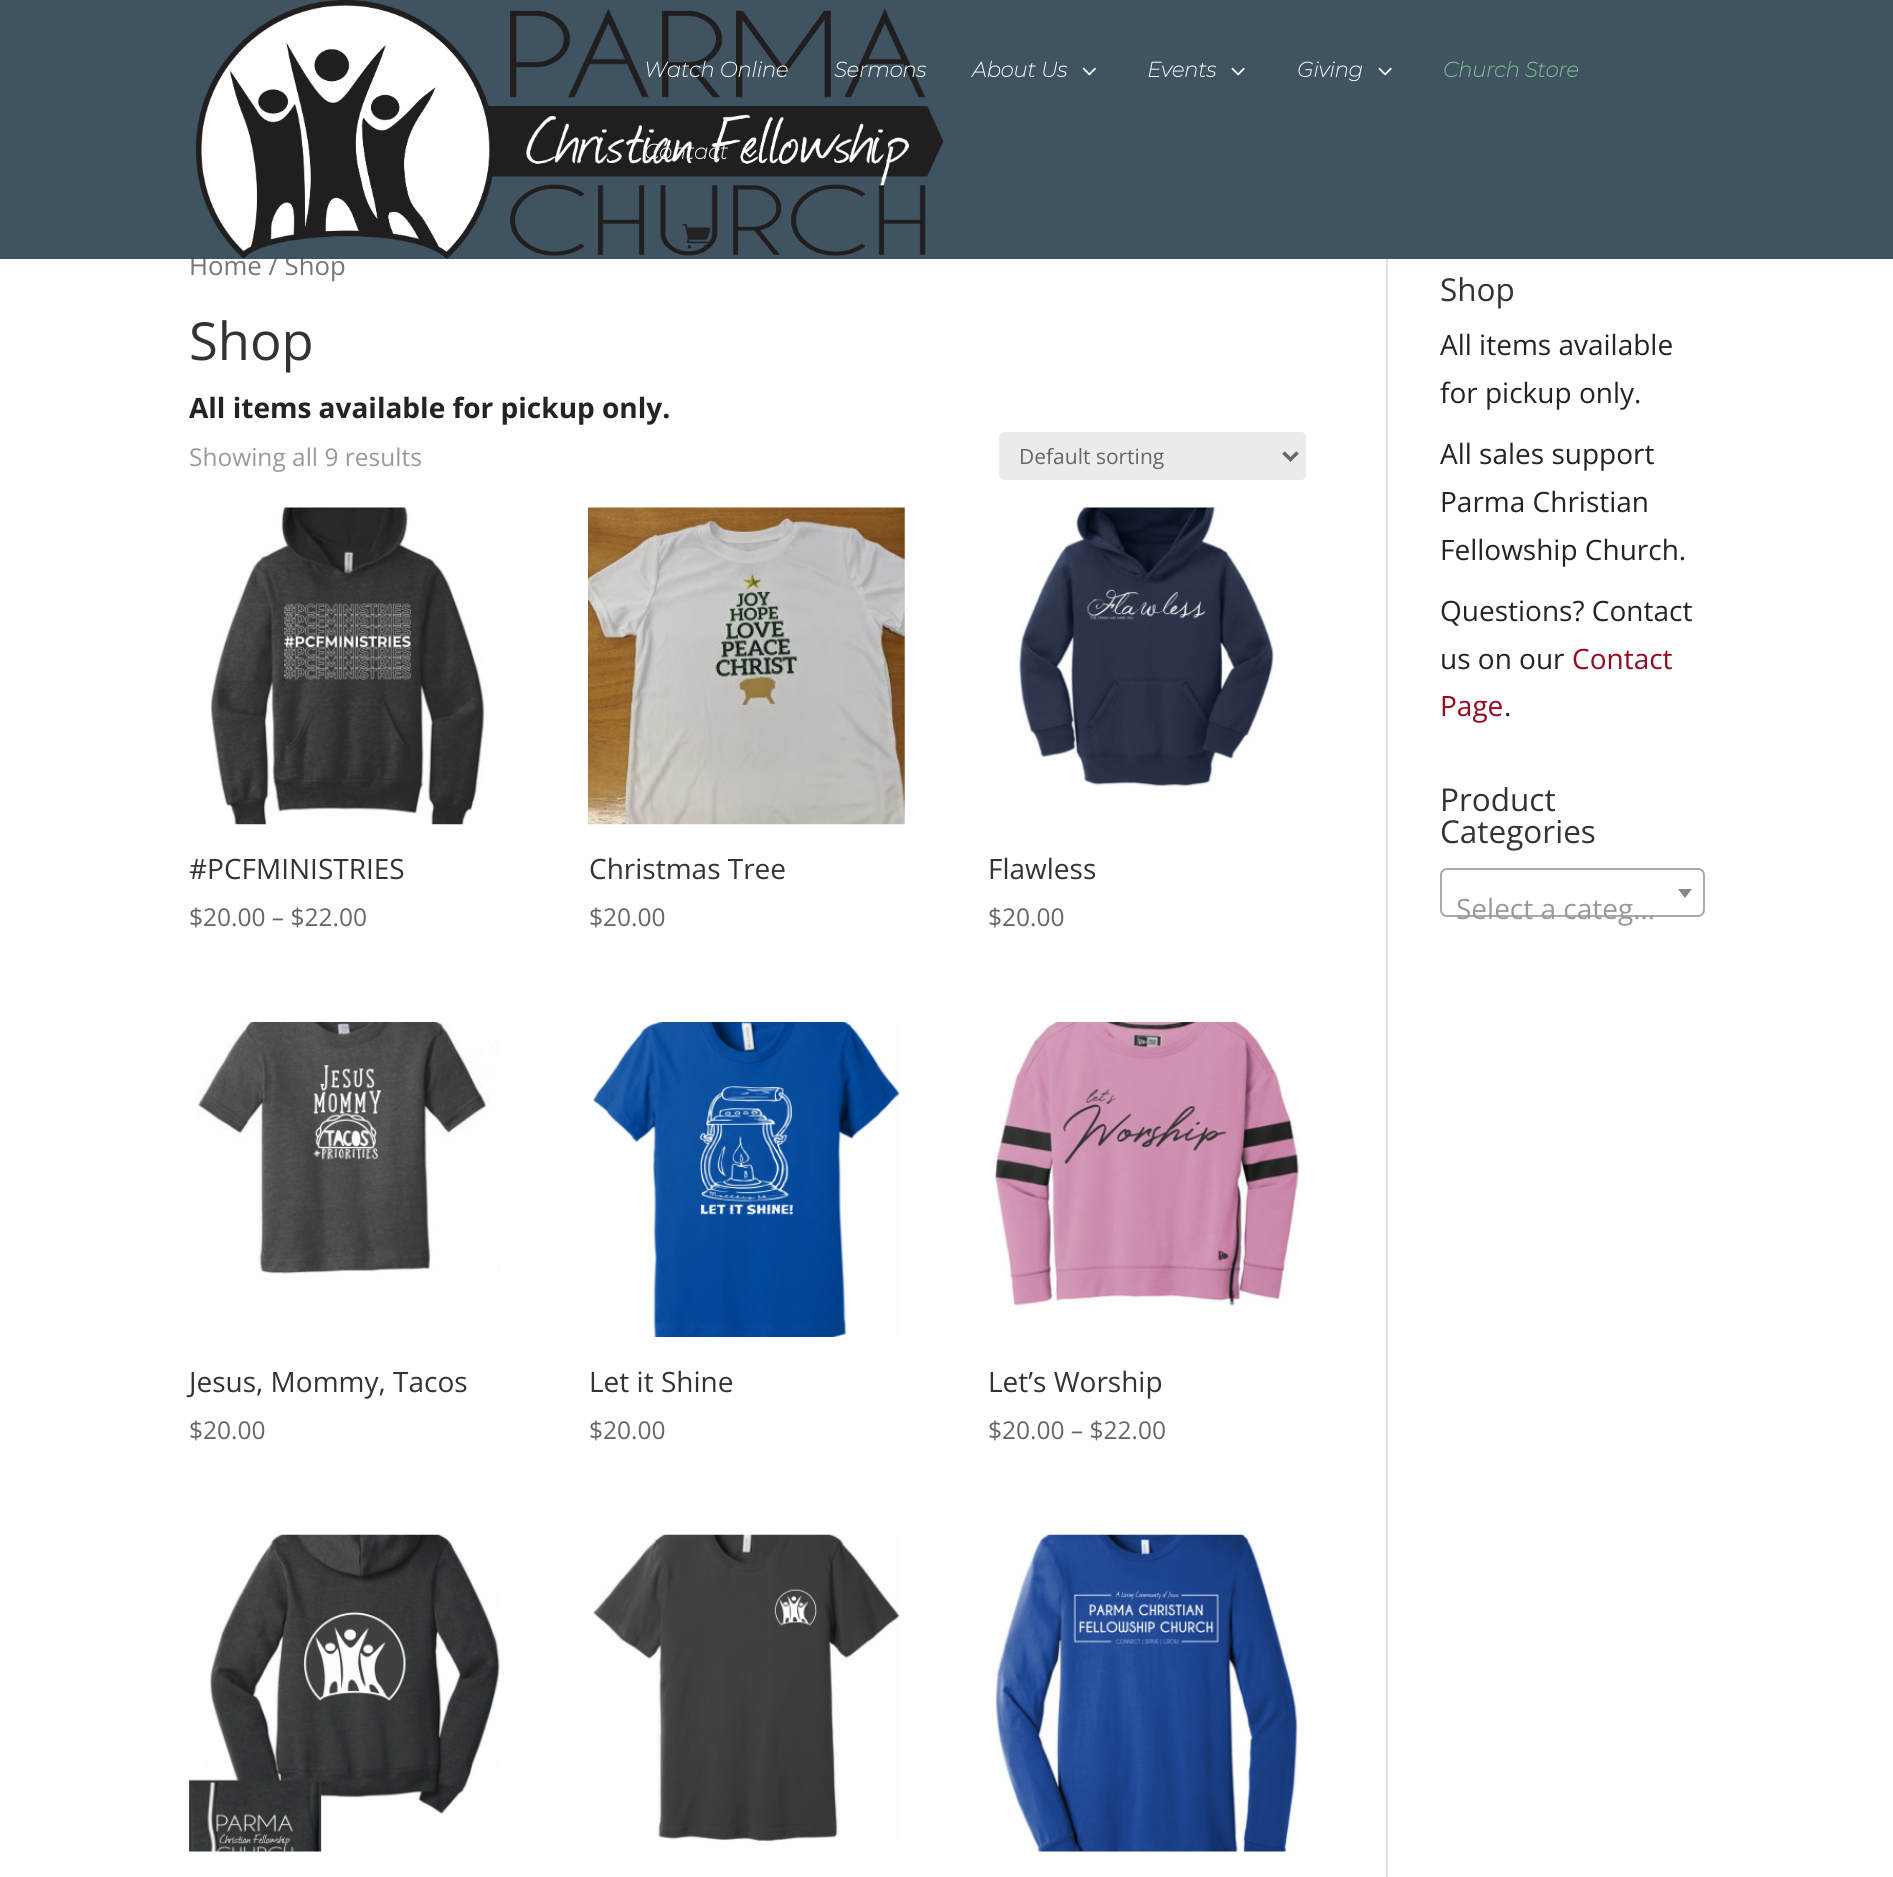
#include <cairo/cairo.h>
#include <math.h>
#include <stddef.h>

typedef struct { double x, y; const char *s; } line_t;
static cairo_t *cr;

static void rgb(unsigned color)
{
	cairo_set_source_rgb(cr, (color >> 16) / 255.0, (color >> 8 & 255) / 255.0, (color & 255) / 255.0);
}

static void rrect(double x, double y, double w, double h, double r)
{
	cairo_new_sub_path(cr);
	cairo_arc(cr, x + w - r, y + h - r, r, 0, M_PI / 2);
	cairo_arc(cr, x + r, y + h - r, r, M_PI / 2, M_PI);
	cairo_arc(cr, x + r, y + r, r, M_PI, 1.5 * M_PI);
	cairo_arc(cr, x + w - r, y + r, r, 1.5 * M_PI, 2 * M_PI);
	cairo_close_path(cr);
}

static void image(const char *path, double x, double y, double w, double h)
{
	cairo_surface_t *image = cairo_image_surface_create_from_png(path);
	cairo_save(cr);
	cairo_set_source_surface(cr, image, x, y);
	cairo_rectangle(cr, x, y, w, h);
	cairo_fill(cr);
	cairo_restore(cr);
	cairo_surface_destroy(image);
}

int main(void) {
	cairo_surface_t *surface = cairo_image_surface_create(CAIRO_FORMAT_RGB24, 1893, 1877);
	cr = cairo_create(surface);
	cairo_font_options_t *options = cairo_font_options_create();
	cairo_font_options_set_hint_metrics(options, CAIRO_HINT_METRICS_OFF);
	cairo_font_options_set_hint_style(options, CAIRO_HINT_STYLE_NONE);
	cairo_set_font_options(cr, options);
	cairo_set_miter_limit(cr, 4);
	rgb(0xffffff);
	cairo_paint(cr);
	rgb(0xe2e2e2);
	cairo_rectangle(cr, 1386, 0, 2, 1877);
	cairo_fill(cr);
	rgb(0xececec);
	rrect(999, 432, 307, 48, 5);
	cairo_fill(cr);
	cairo_new_path(cr);
	cairo_move_to(cr, 1283.5, 452.5);
	cairo_line_to(cr, 1290.5, 459.5);
	cairo_line_to(cr, 1297.5, 452.5);
	rgb(0x666666);
	cairo_set_line_width(cr, 3.5);
	cairo_stroke(cr);
	image("img/7.png", 210, 507, 275, 318);
	image("img/8.png", 588, 507, 317, 318);
	image("img/9.png", 1019, 507, 255, 280);
	image("img/10.png", 197, 1022, 304, 253);
	image("img/11.png", 593, 1022, 307, 315);
	image("img/12.png", 994, 1022, 305, 284);
	image("img/13.png", 189, 1534, 311, 318);
	image("img/14.png", 593, 1534, 307, 308);
	image("img/15.png", 995, 1534, 303, 318);
	rrect(1441, 869, 263, 47, 6);
	rgb(0xaaaaaa);
	cairo_set_line_width(cr, 2);
	cairo_stroke(cr);
	rgb(0x888888);
	cairo_new_path(cr);
	cairo_move_to(cr, 1678, 889);
	cairo_line_to(cr, 1692, 889);
	cairo_line_to(cr, 1685, 898);
	cairo_close_path(cr);
	cairo_fill(cr);
	cairo_select_font_face(cr, "Open Sans", CAIRO_FONT_SLANT_NORMAL, CAIRO_FONT_WEIGHT_NORMAL);
	cairo_set_font_size(cr, 25.75);
	rgb(0x767676);
	cairo_move_to(cr, 189, 275);
	cairo_show_text(cr, "Home / Shop");
	cairo_set_source_rgba(cr, 0.231, 0.31, 0.365, 0.97);
	cairo_rectangle(cr, 0, 0, 1893, 259);
	cairo_fill(cr);
	image("img/1.png", 196, 0, 748, 259);
	image("img/6.png", 682, 224, 29, 25);
	image("img/5.png", 744, 150, 13, 8);
	cairo_select_font_face(cr, "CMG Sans", CAIRO_FONT_SLANT_ITALIC, CAIRO_FONT_WEIGHT_BOLD);
	cairo_set_font_size(cr, 21);
	rgb(0xffffff);
	cairo_move_to(cr, 644, 159);
	cairo_show_text(cr, "Contact");
	rgb(0x7cc68d);
	cairo_move_to(cr, 1443, 77);
	cairo_show_text(cr, "Church Store");
	image("img/4.png", 1378, 67, 14, 9);
	rgb(0xffffff);
	cairo_move_to(cr, 1297, 77);
	cairo_show_text(cr, "Giving");
	image("img/3.png", 1231, 67, 14, 9);
	cairo_move_to(cr, 1147, 77);
	cairo_show_text(cr, "Events");
	image("img/2.png", 1082, 67, 14, 9);
	{
		static const line_t items[] = {
			{972, 77, "About Us"},
			{834, 77, "Sermons"},
			{644, 77, "Watch Online"},
		};
		for (size_t i = 0; i < sizeof items / sizeof *items; i++) {
			cairo_move_to(cr, items[i].x, items[i].y);
			cairo_show_text(cr, items[i].s);
		}
	}
	cairo_select_font_face(cr, "Open Sans", CAIRO_FONT_SLANT_NORMAL, CAIRO_FONT_WEIGHT_NORMAL);
	cairo_set_font_size(cr, 52.5);
	rgb(0x333333);
	cairo_move_to(cr, 189, 360);
	cairo_show_text(cr, "Shop");
	cairo_select_font_face(cr, "Open Sans", CAIRO_FONT_SLANT_NORMAL, CAIRO_FONT_WEIGHT_BOLD);
	cairo_set_font_size(cr, 28);
	rgb(0x232323);
	cairo_move_to(cr, 189, 418);
	cairo_show_text(cr, "All items available for pickup only.");
	cairo_select_font_face(cr, "Open Sans", CAIRO_FONT_SLANT_NORMAL, CAIRO_FONT_WEIGHT_NORMAL);
	cairo_set_font_size(cr, 24.5);
	rgb(0x999999);
	cairo_move_to(cr, 189, 466);
	cairo_show_text(cr, "Showing all 9 results");
	cairo_set_font_size(cr, 21);
	rgb(0x666666);
	cairo_move_to(cr, 1019, 464);
	cairo_show_text(cr, "Default sorting");
	cairo_set_font_size(cr, 28);
	rgb(0x333333);
	cairo_move_to(cr, 189, 879);
	cairo_show_text(cr, "#PCFMINISTRIES");
	cairo_set_font_size(cr, 24.5);
	rgb(0x666666);
	cairo_move_to(cr, 189, 926);
	cairo_show_text(cr, "$20.00 – $22.00");
	cairo_set_font_size(cr, 28);
	rgb(0x333333);
	cairo_move_to(cr, 589, 879);
	cairo_show_text(cr, "Christmas Tree");
	cairo_set_font_size(cr, 24.5);
	rgb(0x666666);
	cairo_move_to(cr, 589, 926);
	cairo_show_text(cr, "$20.00");
	cairo_set_font_size(cr, 28);
	rgb(0x333333);
	cairo_move_to(cr, 988, 879);
	cairo_show_text(cr, "Flawless");
	cairo_set_font_size(cr, 24.5);
	rgb(0x666666);
	cairo_move_to(cr, 988, 926);
	cairo_show_text(cr, "$20.00");
	cairo_set_font_size(cr, 28);
	rgb(0x333333);
	cairo_move_to(cr, 189, 1392);
	cairo_show_text(cr, "Jesus, Mommy, Tacos");
	cairo_set_font_size(cr, 24.5);
	rgb(0x666666);
	cairo_move_to(cr, 189, 1439);
	cairo_show_text(cr, "$20.00");
	cairo_set_font_size(cr, 28);
	rgb(0x333333);
	cairo_move_to(cr, 589, 1392);
	cairo_show_text(cr, "Let it Shine");
	cairo_set_font_size(cr, 24.5);
	rgb(0x666666);
	cairo_move_to(cr, 589, 1439);
	cairo_show_text(cr, "$20.00");
	cairo_set_font_size(cr, 28);
	rgb(0x333333);
	cairo_move_to(cr, 988, 1392);
	cairo_show_text(cr, "Let’s Worship");
	cairo_set_font_size(cr, 24.5);
	rgb(0x666666);
	cairo_move_to(cr, 988, 1439);
	cairo_show_text(cr, "$20.00 – $22.00");
	cairo_set_font_size(cr, 31.5);
	rgb(0x333333);
	cairo_move_to(cr, 1440, 301);
	cairo_show_text(cr, "Shop");
	cairo_set_font_size(cr, 28);
	rgb(0x232323);
	{
		static const line_t items[] = {
			{1440, 355, "All items available"},
			{1440, 403, "for pickup only."},
			{1440, 464, "All sales support"},
			{1440, 512, "Parma Christian"},
			{1440, 560, "Fellowship Church."},
			{1440, 621, "Questions? Contact"},
			{1440, 669, "us on our"},
		};
		for (size_t i = 0; i < sizeof items / sizeof *items; i++) {
			cairo_move_to(cr, items[i].x, items[i].y);
			cairo_show_text(cr, items[i].s);
		}
	}
	rgb(0x930a1e);
	cairo_move_to(cr, 1572, 669);
	cairo_show_text(cr, "Contact");
	cairo_move_to(cr, 1440, 716);
	cairo_show_text(cr, "Page");
	rgb(0x232323);
	cairo_move_to(cr, 1504, 716);
	cairo_show_text(cr, ".");
	cairo_set_font_size(cr, 31.5);
	rgb(0x333333);
	cairo_move_to(cr, 1440, 811);
	cairo_show_text(cr, "Product");
	cairo_move_to(cr, 1440, 843);
	cairo_show_text(cr, "Categories");
	cairo_set_font_size(cr, 28);
	rgb(0x999999);
	cairo_move_to(cr, 1456, 919);
	cairo_show_text(cr, "Select a categ…");
	cairo_surface_write_to_png(surface, "page.png");
	cairo_font_options_destroy(options);
	cairo_destroy(cr);
	cairo_surface_destroy(surface);
	return 0;
}
